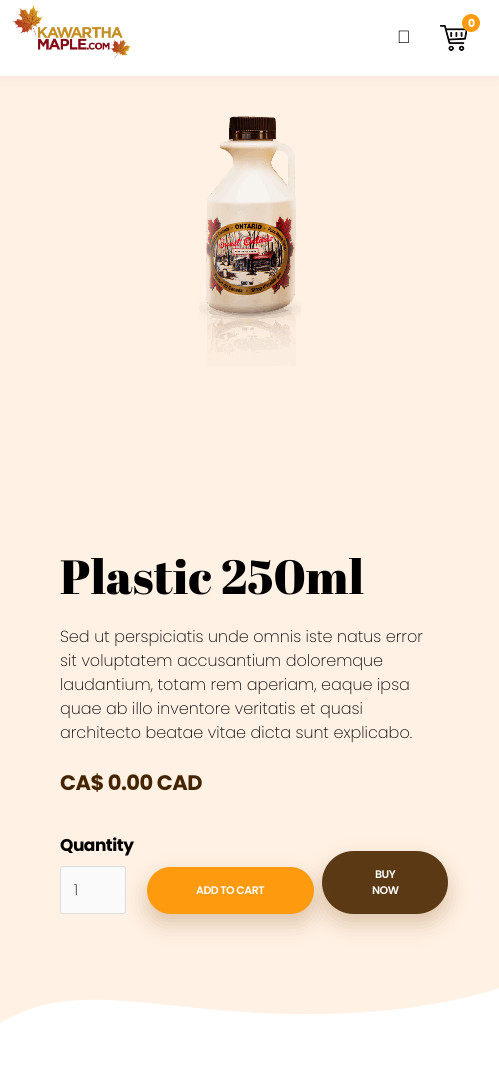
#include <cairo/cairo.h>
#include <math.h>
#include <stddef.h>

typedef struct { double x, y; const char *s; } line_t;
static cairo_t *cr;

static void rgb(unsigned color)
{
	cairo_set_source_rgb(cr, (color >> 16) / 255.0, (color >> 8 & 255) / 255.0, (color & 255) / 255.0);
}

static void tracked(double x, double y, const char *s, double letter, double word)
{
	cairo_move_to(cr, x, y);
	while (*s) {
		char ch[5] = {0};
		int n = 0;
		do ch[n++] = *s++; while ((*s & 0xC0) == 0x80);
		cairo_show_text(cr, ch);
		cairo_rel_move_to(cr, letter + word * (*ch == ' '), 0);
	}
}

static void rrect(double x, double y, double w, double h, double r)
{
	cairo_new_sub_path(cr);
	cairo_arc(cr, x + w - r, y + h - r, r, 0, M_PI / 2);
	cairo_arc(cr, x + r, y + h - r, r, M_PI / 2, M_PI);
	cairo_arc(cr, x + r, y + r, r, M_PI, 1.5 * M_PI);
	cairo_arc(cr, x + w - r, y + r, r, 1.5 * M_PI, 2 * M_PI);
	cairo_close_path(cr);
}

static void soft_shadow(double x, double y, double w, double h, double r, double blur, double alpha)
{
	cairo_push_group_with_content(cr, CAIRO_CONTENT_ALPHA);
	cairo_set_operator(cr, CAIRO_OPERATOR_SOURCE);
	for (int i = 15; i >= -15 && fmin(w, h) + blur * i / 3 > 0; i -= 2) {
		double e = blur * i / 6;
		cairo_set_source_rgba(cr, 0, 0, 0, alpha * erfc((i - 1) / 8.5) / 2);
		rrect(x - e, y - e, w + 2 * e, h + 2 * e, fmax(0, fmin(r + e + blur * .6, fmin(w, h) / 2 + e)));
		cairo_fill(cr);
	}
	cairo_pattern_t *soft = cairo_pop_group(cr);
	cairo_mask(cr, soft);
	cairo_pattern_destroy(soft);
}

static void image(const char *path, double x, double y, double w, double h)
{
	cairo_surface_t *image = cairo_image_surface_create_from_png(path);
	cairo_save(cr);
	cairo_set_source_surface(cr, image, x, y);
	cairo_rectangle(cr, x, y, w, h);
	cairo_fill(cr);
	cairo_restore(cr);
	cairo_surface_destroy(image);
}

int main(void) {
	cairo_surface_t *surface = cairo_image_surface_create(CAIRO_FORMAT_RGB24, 499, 1066);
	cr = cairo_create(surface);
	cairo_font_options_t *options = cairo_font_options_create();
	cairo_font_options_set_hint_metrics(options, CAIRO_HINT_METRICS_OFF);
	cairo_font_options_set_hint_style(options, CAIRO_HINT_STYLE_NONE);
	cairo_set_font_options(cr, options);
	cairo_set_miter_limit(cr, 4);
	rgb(0xfff1e4);
	cairo_paint(cr);
	rgb(0x5a3914);
	soft_shadow(0, 3, 499, 76, 0, 5, 0.05);
	rgb(0xffffff);
	cairo_rectangle(cr, 0, 0, 499, 76);
	cairo_fill(cr);
	image("img/1.png", 12, 5, 119, 53);
	image("img/2.png", 440, 25, 27, 26);
	rgb(0xfd9a0e);
	cairo_arc(cr, 471, 23, 9, 0, 2 * M_PI);
	cairo_fill(cr);
	image("img/3.png", 398, 30, 11, 13);
	image("img/4.png", 199, 116, 102, 250);
	rgb(0xfafafa);
	rrect(60.5, 866.5, 65, 47, 2.5);
	cairo_fill_preserve(cr);
	rgb(0xdddddd);
	cairo_set_line_width(cr, 1);
	cairo_stroke(cr);
	rgb(0x905e25);
	soft_shadow(322, 861, 126, 63, 31.5, 10.5, 0.3);
	rgb(0x5a3914);
	rrect(322, 851, 126, 63, 31.5);
	cairo_fill(cr);
	rgb(0x905e25);
	soft_shadow(147, 877, 167, 47, 23.5, 10.5, 0.3);
	rgb(0xfe9a0e);
	rrect(147, 867, 167, 47, 23.5);
	cairo_fill(cr);
	rgb(0xffffff);
	cairo_set_fill_rule(cr, CAIRO_FILL_RULE_EVEN_ODD);
	cairo_new_path(cr);
	cairo_move_to(cr, 499, 988);
	cairo_curve_to(cr, 499, 988, 409, 1023, 242, 1012);
	cairo_curve_to(cr, 130, 1004, 67, 984, 0, 1023);
	cairo_line_to(cr, 0, 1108);
	cairo_line_to(cr, 499, 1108);
	cairo_close_path(cr);
	cairo_fill(cr);
	cairo_select_font_face(cr, "Poppins", CAIRO_FONT_SLANT_NORMAL, CAIRO_FONT_WEIGHT_BOLD);
	cairo_set_font_size(cr, 11);
	tracked(468, 27, "0", -0.5, 0);
	cairo_select_font_face(cr, "Abril Fatface", CAIRO_FONT_SLANT_NORMAL, CAIRO_FONT_WEIGHT_NORMAL);
	cairo_set_font_size(cr, 48);
	rgb(0x000000);
	tracked(60, 594, "Plastic 250ml", 0.25, 0);
	cairo_select_font_face(cr, "Poppins ExtraLight", CAIRO_FONT_SLANT_NORMAL, CAIRO_FONT_WEIGHT_NORMAL);
	cairo_set_font_size(cr, 16);
	{
		static const line_t items[] = {
			{60, 642, "Sed ut perspiciatis unde omnis iste natus error"},
			{60, 666, "sit voluptatem accusantium doloremque"},
			{60, 690, "laudantium, totam rem aperiam, eaque ipsa"},
			{60, 714, "quae ab illo inventore veritatis et quasi"},
			{60, 738, "architecto beatae vitae dicta sunt explicabo."},
		};
		for (size_t i = 0; i < sizeof items / sizeof *items; i++) {
			cairo_move_to(cr, items[i].x, items[i].y);
			cairo_show_text(cr, items[i].s);
		}
	}
	cairo_select_font_face(cr, "Poppins", CAIRO_FONT_SLANT_NORMAL, CAIRO_FONT_WEIGHT_BOLD);
	cairo_set_font_size(cr, 21);
	rgb(0x452501);
	tracked(60, 790, "CA$ 0.00 CAD", -0.5, 0);
	cairo_set_font_size(cr, 17);
	rgb(0x000000);
	tracked(60, 851, "Quantity", -0.5, 0);
	cairo_select_font_face(cr, "Poppins ExtraLight", CAIRO_FONT_SLANT_NORMAL, CAIRO_FONT_WEIGHT_NORMAL);
	cairo_set_font_size(cr, 15);
	cairo_move_to(cr, 74, 895);
	cairo_show_text(cr, "1");
	cairo_select_font_face(cr, "Poppins SemiBold", CAIRO_FONT_SLANT_NORMAL, CAIRO_FONT_WEIGHT_NORMAL);
	cairo_set_font_size(cr, 11);
	rgb(0xffffff);
	{
		static const line_t items[] = {
			{196, 894, "ADD TO CART"},
			{375, 878, "BUY"},
			{372, 894, "NOW"},
		};
		for (size_t i = 0; i < sizeof items / sizeof *items; i++) {
			tracked(items[i].x, items[i].y, items[i].s, -0.5, 0);
		}
	}
	cairo_surface_write_to_png(surface, "page.png");
	cairo_font_options_destroy(options);
	cairo_destroy(cr);
	cairo_surface_destroy(surface);
	return 0;
}
